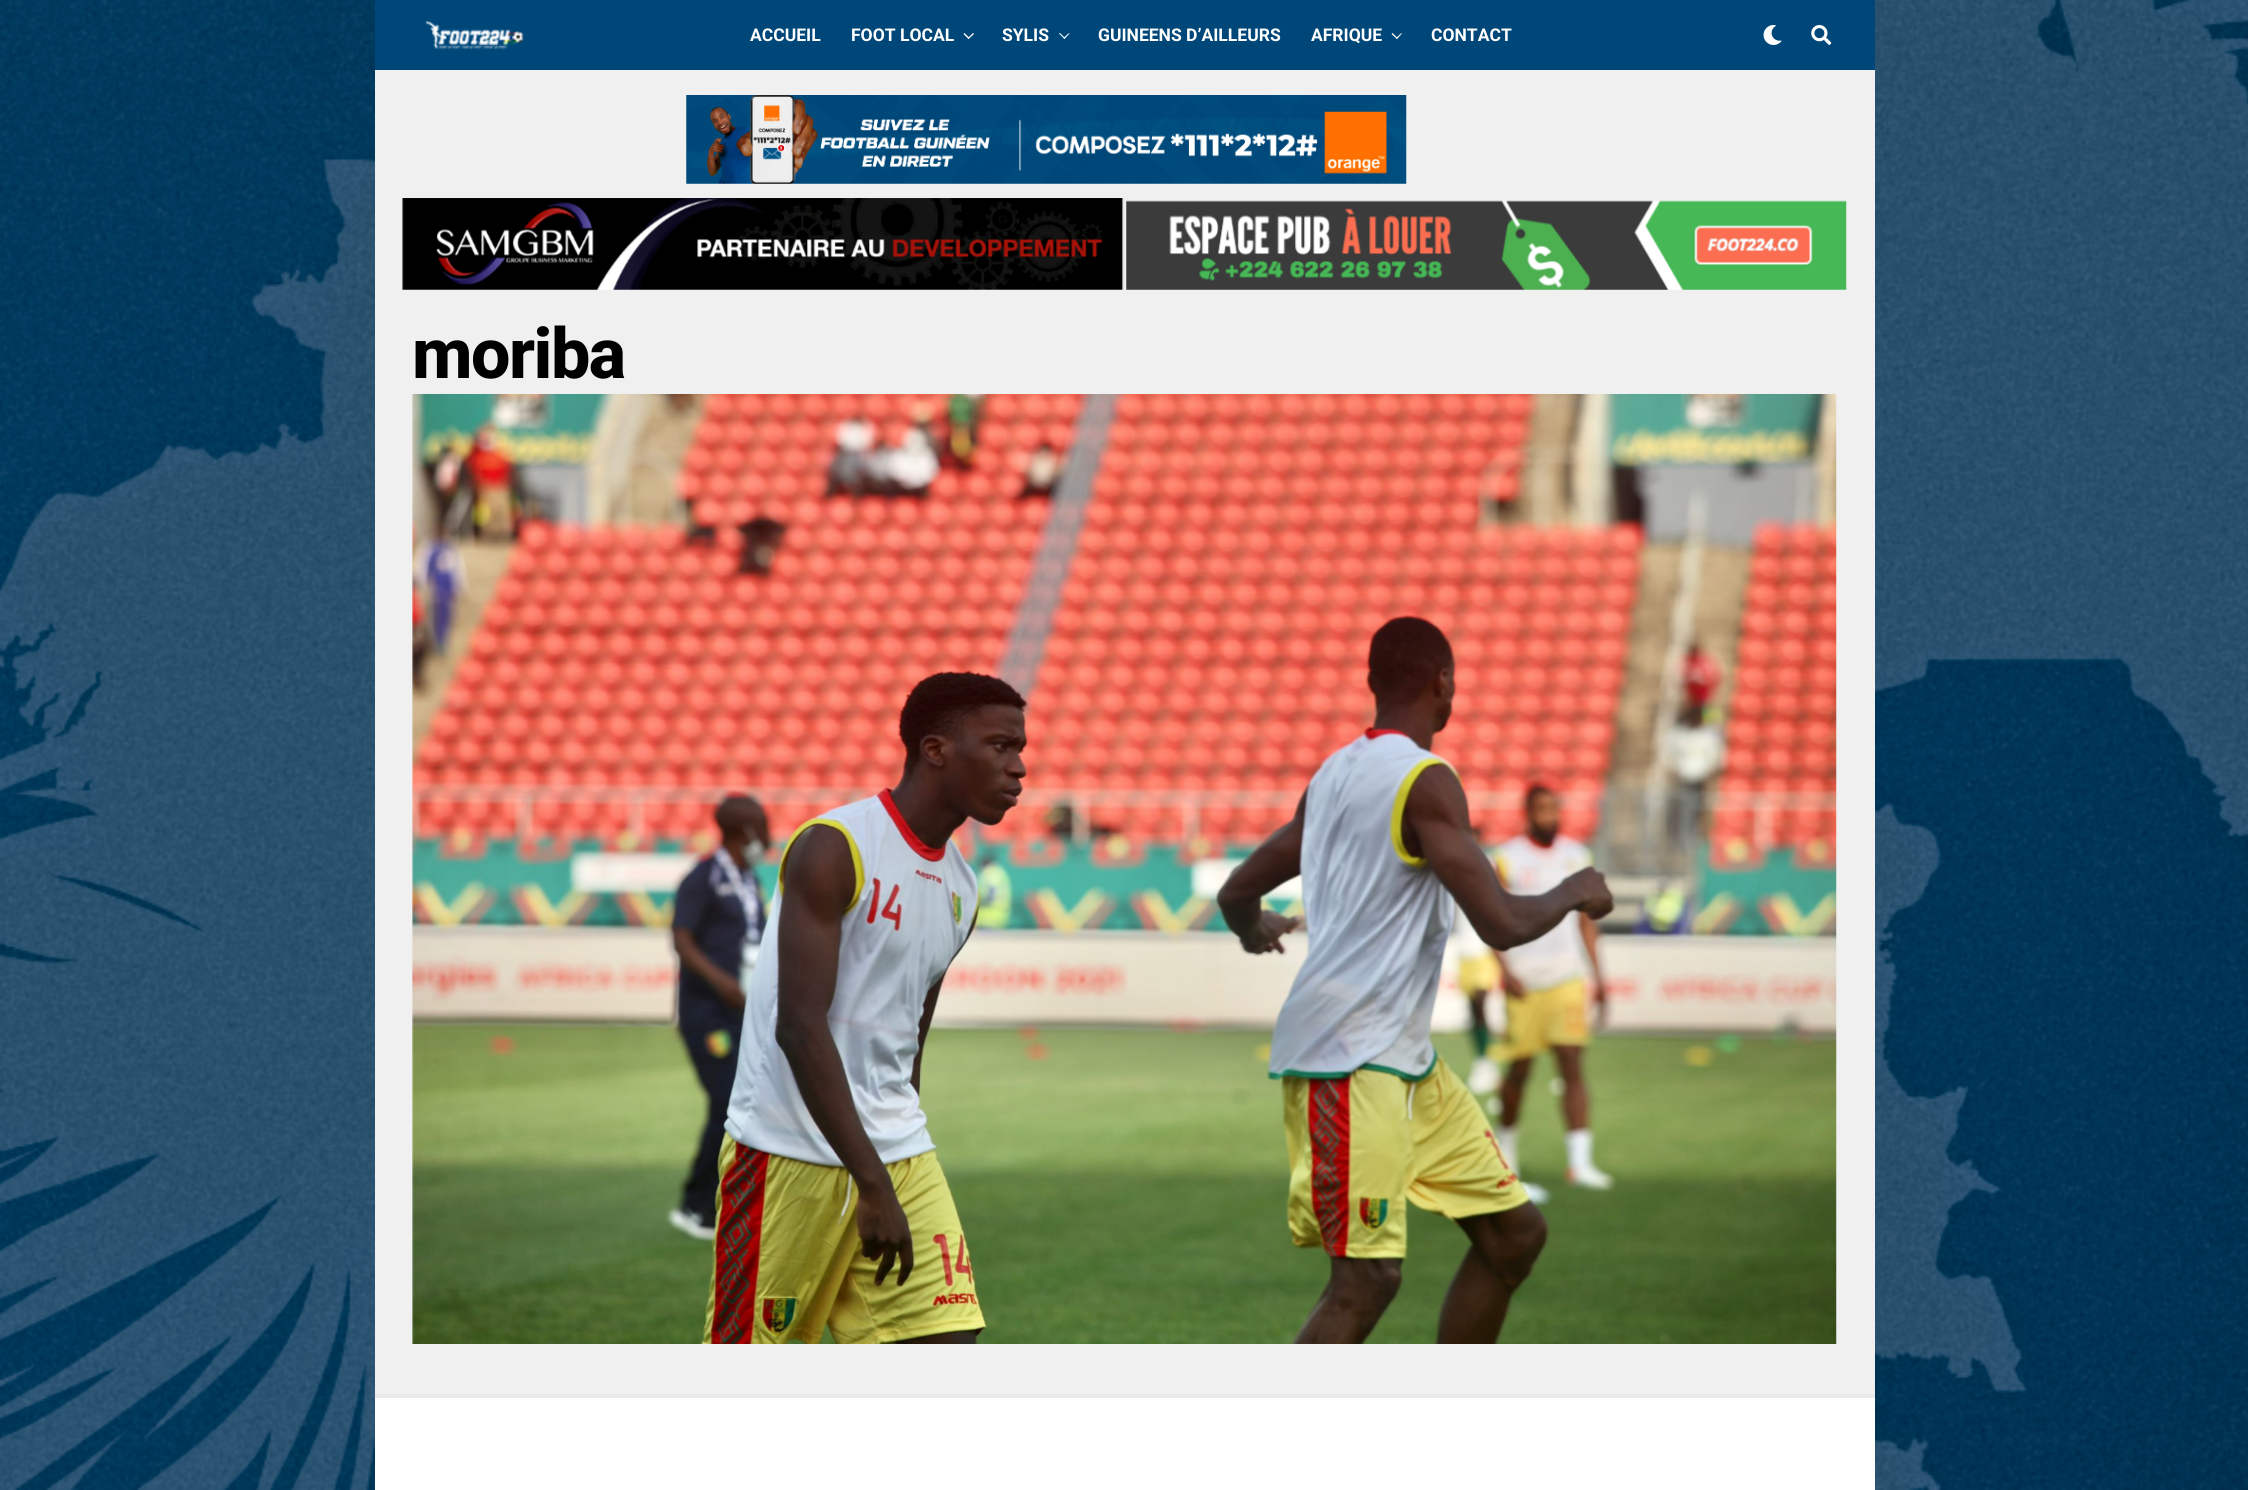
#include <cairo/cairo.h>
#include <math.h>
#include <stddef.h>

typedef struct { double x, y; const char *s; } line_t;
static cairo_t *cr;

static void rgb(unsigned color)
{
	cairo_set_source_rgb(cr, (color >> 16) / 255.0, (color >> 8 & 255) / 255.0, (color & 255) / 255.0);
}

static void tracked(double x, double y, const char *s, double letter, double word)
{
	cairo_move_to(cr, x, y);
	while (*s) {
		char ch[5] = {0};
		int n = 0;
		do ch[n++] = *s++; while ((*s & 0xC0) == 0x80);
		cairo_show_text(cr, ch);
		cairo_rel_move_to(cr, letter + word * (*ch == ' '), 0);
	}
}

static void image(const char *path, double x, double y, double w, double h)
{
	cairo_surface_t *image = cairo_image_surface_create_from_png(path);
	cairo_save(cr);
	cairo_set_source_surface(cr, image, x, y);
	cairo_rectangle(cr, x, y, w, h);
	cairo_fill(cr);
	cairo_restore(cr);
	cairo_surface_destroy(image);
}

int main(void) {
	cairo_surface_t *surface = cairo_image_surface_create(CAIRO_FORMAT_RGB24, 2248, 1490);
	cr = cairo_create(surface);
	cairo_font_options_t *options = cairo_font_options_create();
	cairo_font_options_set_hint_metrics(options, CAIRO_HINT_METRICS_OFF);
	cairo_font_options_set_hint_style(options, CAIRO_HINT_STYLE_NONE);
	cairo_set_font_options(cr, options);
	cairo_set_miter_limit(cr, 4);
	rgb(0xffffff);
	cairo_paint(cr);
	image("img/1.png", 0, 0, 2248, 1490);
	rgb(0x004779);
	cairo_rectangle(cr, 375, 0, 1500, 70);
	cairo_fill(cr);
	image("img/2.png", 425, 21, 99, 29);
	rgb(0xffffff);
	cairo_new_path(cr);
	cairo_move_to(cr, 973, 33);
	cairo_line_to(cr, 974, 34);
	cairo_line_to(cr, 968.5, 39);
	cairo_line_to(cr, 968, 38);
	cairo_close_path(cr);
	cairo_fill(cr);
	cairo_new_path(cr);
	cairo_move_to(cr, 964.5, 33);
	cairo_line_to(cr, 969.5, 38);
	cairo_line_to(cr, 968.5, 39);
	cairo_line_to(cr, 963.5, 34);
	cairo_close_path(cr);
	cairo_fill(cr);
	cairo_new_path(cr);
	cairo_move_to(cr, 1069, 33);
	cairo_line_to(cr, 1069.5, 33.5);
	cairo_line_to(cr, 1064.5, 39);
	cairo_line_to(cr, 1063.5, 38);
	cairo_close_path(cr);
	cairo_fill(cr);
	cairo_new_path(cr);
	cairo_move_to(cr, 1060, 33);
	cairo_line_to(cr, 1065, 38);
	cairo_line_to(cr, 1064.5, 39);
	cairo_line_to(cr, 1059, 33.5);
	cairo_close_path(cr);
	cairo_fill(cr);
	cairo_new_path(cr);
	cairo_move_to(cr, 1401.5, 33);
	cairo_line_to(cr, 1402, 33.5);
	cairo_line_to(cr, 1397, 39);
	cairo_line_to(cr, 1396, 38);
	cairo_close_path(cr);
	cairo_fill(cr);
	cairo_new_path(cr);
	cairo_move_to(cr, 1392.5, 33);
	cairo_line_to(cr, 1397.5, 38);
	cairo_line_to(cr, 1397, 39);
	cairo_line_to(cr, 1391.5, 34);
	cairo_close_path(cr);
	cairo_fill(cr);
	image("img/3.png", 1763, 25, 19, 20);
	image("img/4.png", 1811, 25, 21, 20);
	rgb(0xf0f0f0);
	cairo_rectangle(cr, 375, 70, 1500, 1324);
	cairo_fill(cr);
	image("img/5.png", 686, 95, 721, 89);
	image("img/6.png", 402, 198, 722, 92);
	image("img/7.png", 1126, 200, 721, 90);
	image("img/8.png", 412, 394, 1425, 950);
	rgb(0xffffff);
	cairo_rectangle(cr, 375, 1398, 1500, 92);
	cairo_fill(cr);
	rgb(0xe9e9e9);
	cairo_rectangle(cr, 375, 1394, 1500, 4);
	cairo_fill(cr);
	cairo_select_font_face(cr, "Roboto", CAIRO_FONT_SLANT_NORMAL, CAIRO_FONT_WEIGHT_BOLD);
	cairo_set_font_size(cr, 17.5);
	rgb(0xffffff);
	{
		static const line_t items[] = {
			{750, 41, "ACCUEIL"},
			{851, 41, "FOOT LOCAL"},
			{1002, 41, "SYLIS"},
			{1098, 41, "GUINEENS D’AILLEURS"},
			{1311, 41, "AFRIQUE"},
			{1431, 41, "CONTACT"},
		};
		for (size_t i = 0; i < sizeof items / sizeof *items; i++) {
			cairo_move_to(cr, items[i].x, items[i].y);
			cairo_show_text(cr, items[i].s);
		}
	}
	cairo_select_font_face(cr, "Roboto ExtraBold", CAIRO_FONT_SLANT_NORMAL, CAIRO_FONT_WEIGHT_NORMAL);
	cairo_set_font_size(cr, 70);
	rgb(0x000000);
	tracked(412, 378, "moriba", -1.5, 0);
	cairo_surface_write_to_png(surface, "page.png");
	cairo_font_options_destroy(options);
	cairo_destroy(cr);
	cairo_surface_destroy(surface);
	return 0;
}
